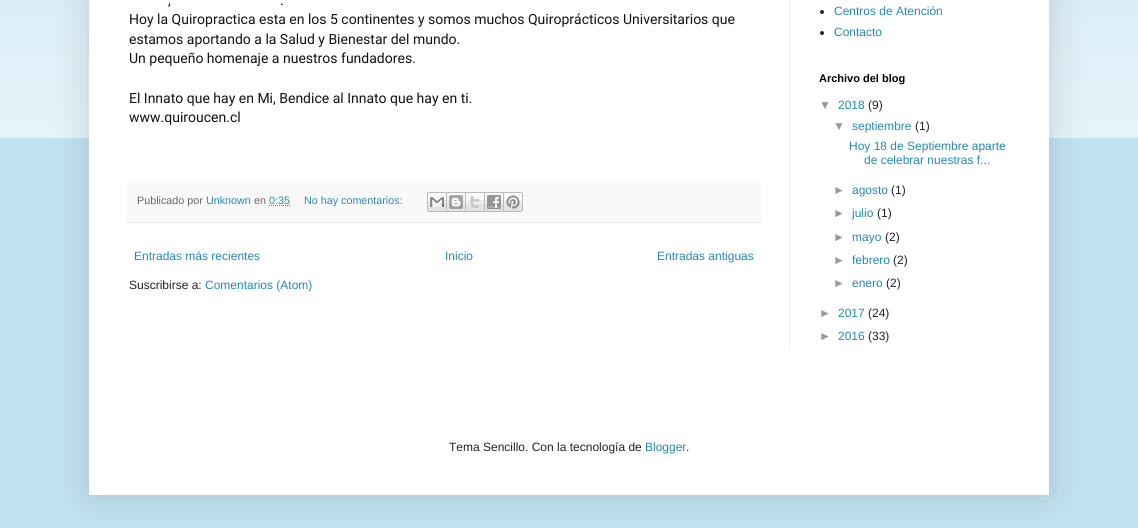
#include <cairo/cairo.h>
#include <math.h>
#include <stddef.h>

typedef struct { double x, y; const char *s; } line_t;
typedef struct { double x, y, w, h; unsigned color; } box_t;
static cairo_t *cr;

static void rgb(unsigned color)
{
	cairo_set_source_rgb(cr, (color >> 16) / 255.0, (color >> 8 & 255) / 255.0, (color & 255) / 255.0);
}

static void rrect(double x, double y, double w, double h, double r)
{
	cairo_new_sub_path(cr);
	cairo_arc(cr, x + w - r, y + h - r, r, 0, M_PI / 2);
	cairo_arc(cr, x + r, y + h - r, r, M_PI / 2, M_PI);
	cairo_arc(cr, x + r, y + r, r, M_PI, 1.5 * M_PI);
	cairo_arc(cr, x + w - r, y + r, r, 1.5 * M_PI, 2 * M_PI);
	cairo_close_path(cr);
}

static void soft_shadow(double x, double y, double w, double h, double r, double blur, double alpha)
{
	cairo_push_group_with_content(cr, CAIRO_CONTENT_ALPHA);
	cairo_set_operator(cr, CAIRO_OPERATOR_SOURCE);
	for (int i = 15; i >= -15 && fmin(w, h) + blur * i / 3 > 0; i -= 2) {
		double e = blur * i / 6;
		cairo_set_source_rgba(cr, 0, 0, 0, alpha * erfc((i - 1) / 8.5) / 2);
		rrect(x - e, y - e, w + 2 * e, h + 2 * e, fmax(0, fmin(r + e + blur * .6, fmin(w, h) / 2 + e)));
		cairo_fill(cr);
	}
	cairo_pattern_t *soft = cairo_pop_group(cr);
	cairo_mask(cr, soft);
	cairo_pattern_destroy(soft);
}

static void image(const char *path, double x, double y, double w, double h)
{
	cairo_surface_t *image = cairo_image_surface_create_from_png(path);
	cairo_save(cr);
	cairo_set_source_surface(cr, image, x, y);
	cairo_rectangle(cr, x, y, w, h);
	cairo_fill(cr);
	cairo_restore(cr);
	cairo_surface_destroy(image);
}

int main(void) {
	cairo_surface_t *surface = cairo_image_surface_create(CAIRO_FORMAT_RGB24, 1138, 528);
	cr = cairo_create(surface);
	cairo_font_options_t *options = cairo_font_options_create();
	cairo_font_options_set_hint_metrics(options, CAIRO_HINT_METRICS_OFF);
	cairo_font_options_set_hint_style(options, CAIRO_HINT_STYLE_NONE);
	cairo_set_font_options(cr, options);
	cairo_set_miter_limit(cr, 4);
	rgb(0xc2e3f2);
	cairo_paint(cr);
	image("img/1.png", 0, 0, 1138, 138);
	rgb(0x000000);
	soft_shadow(89, -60, 960, 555, 0, 20, 0.15);
	{
		static const box_t items[] = {
			{89, 0, 960, 495, 0xffffff},
			{789, 0, 1, 349, 0xeeeeee},
			{127, 181, 634, 41, 0xf9f9f9},
			{127, 222, 634, 1, 0xeeeeee},
		};
		for (size_t i = 0; i < sizeof items / sizeof *items; i++) {
			rgb(items[i].color);
			cairo_rectangle(cr, items[i].x, items[i].y, items[i].w, items[i].h);
			cairo_fill(cr);
		}
	}
	cairo_new_path(cr);
	cairo_move_to(cr, 269, 205.5);
	cairo_line_to(cr, 290, 205.5);
	rgb(0x2288bb);
	cairo_set_line_width(cr, 1);
	cairo_set_dash(cr, (double[]){1, 1}, 2, 0);
	cairo_stroke(cr);
	image("img/2.png", 427, 192, 20, 20);
	image("img/3.png", 447, 192, 19, 20);
	image("img/4.png", 466, 192, 19, 20);
	image("img/5.png", 485, 192, 19, 20);
	image("img/6.png", 504, 192, 19, 20);
	rgb(0x222222);
	cairo_arc(cr, 822, 12, 2, 0, 2 * M_PI);
	cairo_fill(cr);
	cairo_arc(cr, 822, 33, 2, 0, 2 * M_PI);
	cairo_fill(cr);
	cairo_select_font_face(cr, "Roboto", CAIRO_FONT_SLANT_NORMAL, CAIRO_FONT_WEIGHT_NORMAL);
	cairo_set_font_size(cr, 14);
	rgb(0x111111);
	{
		static const line_t items[] = {
			{168, 5, ","},
			{280, 5, "."},
			{129, 24, "Hoy la Quiropractica esta en los 5 continentes y somos muchos Quiroprácticos Universitarios que"},
			{129, 44, "estamos aportando a la Salud y Bienestar del mundo."},
			{129, 63, "Un pequeño homenaje a nuestros fundadores."},
			{129, 103, "El Innato que hay en Mi, Bendice al Innato que hay en ti."},
			{129, 122, "www.quiroucen.cl"},
		};
		for (size_t i = 0; i < sizeof items / sizeof *items; i++) {
			cairo_move_to(cr, items[i].x, items[i].y);
			cairo_show_text(cr, items[i].s);
		}
	}
	cairo_select_font_face(cr, "Liberation Sans", CAIRO_FONT_SLANT_NORMAL, CAIRO_FONT_WEIGHT_NORMAL);
	cairo_set_font_size(cr, 10.75);
	rgb(0x666666);
	cairo_move_to(cr, 137, 204);
	cairo_show_text(cr, "Publicado por");
	rgb(0x2288bb);
	cairo_move_to(cr, 206, 204);
	cairo_show_text(cr, "Unknown");
	rgb(0x666666);
	cairo_move_to(cr, 254, 204);
	cairo_show_text(cr, "en");
	rgb(0x2288bb);
	cairo_move_to(cr, 269, 204);
	cairo_show_text(cr, "0:35");
	cairo_move_to(cr, 304, 204);
	cairo_show_text(cr, "No hay comentarios:");
	cairo_set_font_size(cr, 12);
	{
		static const line_t items[] = {
			{134, 260, "Entradas más recientes"},
			{445, 260, "Inicio"},
			{657, 260, "Entradas antiguas"},
		};
		for (size_t i = 0; i < sizeof items / sizeof *items; i++) {
			cairo_move_to(cr, items[i].x, items[i].y);
			cairo_show_text(cr, items[i].s);
		}
	}
	rgb(0x222222);
	cairo_move_to(cr, 129, 289);
	cairo_show_text(cr, "Suscribirse a:");
	rgb(0x2288bb);
	{
		static const line_t items[] = {
			{205, 289, "Comentarios (Atom)"},
			{834, 15, "Centros de Atención"},
			{834, 36, "Contacto"},
		};
		for (size_t i = 0; i < sizeof items / sizeof *items; i++) {
			cairo_move_to(cr, items[i].x, items[i].y);
			cairo_show_text(cr, items[i].s);
		}
	}
	cairo_select_font_face(cr, "Liberation Sans", CAIRO_FONT_SLANT_NORMAL, CAIRO_FONT_WEIGHT_BOLD);
	cairo_set_font_size(cr, 11);
	rgb(0x000000);
	cairo_move_to(cr, 819, 82);
	cairo_show_text(cr, "Archivo del blog");
	cairo_select_font_face(cr, "Liberation Sans", CAIRO_FONT_SLANT_NORMAL, CAIRO_FONT_WEIGHT_NORMAL);
	cairo_set_font_size(cr, 12);
	rgb(0x999999);
	cairo_move_to(cr, 819, 109);
	cairo_show_text(cr, "▼");
	rgb(0x2288bb);
	cairo_move_to(cr, 838, 109);
	cairo_show_text(cr, "2018");
	rgb(0x222222);
	cairo_move_to(cr, 868, 109);
	cairo_show_text(cr, "(9)");
	rgb(0x999999);
	cairo_move_to(cr, 833, 130);
	cairo_show_text(cr, "▼");
	rgb(0x2288bb);
	cairo_move_to(cr, 852, 130);
	cairo_show_text(cr, "septiembre");
	rgb(0x222222);
	cairo_move_to(cr, 915, 130);
	cairo_show_text(cr, "(1)");
	rgb(0x2288bb);
	cairo_move_to(cr, 849, 150);
	cairo_show_text(cr, "Hoy 18 de Septiembre aparte");
	cairo_move_to(cr, 864, 164);
	cairo_show_text(cr, "de celebrar nuestras f...");
	rgb(0x999999);
	cairo_move_to(cr, 833, 194);
	cairo_show_text(cr, "►");
	rgb(0x2288bb);
	cairo_move_to(cr, 852, 194);
	cairo_show_text(cr, "agosto");
	rgb(0x222222);
	cairo_move_to(cr, 891, 194);
	cairo_show_text(cr, "(1)");
	rgb(0x999999);
	cairo_move_to(cr, 833, 217);
	cairo_show_text(cr, "►");
	rgb(0x2288bb);
	cairo_move_to(cr, 852, 217);
	cairo_show_text(cr, "julio");
	rgb(0x222222);
	cairo_move_to(cr, 877, 217);
	cairo_show_text(cr, "(1)");
	rgb(0x999999);
	cairo_move_to(cr, 833, 241);
	cairo_show_text(cr, "►");
	rgb(0x2288bb);
	cairo_move_to(cr, 852, 241);
	cairo_show_text(cr, "mayo");
	rgb(0x222222);
	cairo_move_to(cr, 885, 241);
	cairo_show_text(cr, "(2)");
	rgb(0x999999);
	cairo_move_to(cr, 833, 264);
	cairo_show_text(cr, "►");
	rgb(0x2288bb);
	cairo_move_to(cr, 852, 264);
	cairo_show_text(cr, "febrero");
	rgb(0x222222);
	cairo_move_to(cr, 893, 264);
	cairo_show_text(cr, "(2)");
	rgb(0x999999);
	cairo_move_to(cr, 833, 287);
	cairo_show_text(cr, "►");
	rgb(0x2288bb);
	cairo_move_to(cr, 852, 287);
	cairo_show_text(cr, "enero");
	rgb(0x222222);
	cairo_move_to(cr, 886, 287);
	cairo_show_text(cr, "(2)");
	rgb(0x999999);
	cairo_move_to(cr, 819, 317);
	cairo_show_text(cr, "►");
	rgb(0x2288bb);
	cairo_move_to(cr, 838, 317);
	cairo_show_text(cr, "2017");
	rgb(0x222222);
	cairo_move_to(cr, 868, 317);
	cairo_show_text(cr, "(24)");
	rgb(0x999999);
	cairo_move_to(cr, 819, 340);
	cairo_show_text(cr, "►");
	rgb(0x2288bb);
	cairo_move_to(cr, 838, 340);
	cairo_show_text(cr, "2016");
	rgb(0x222222);
	cairo_move_to(cr, 868, 340);
	cairo_show_text(cr, "(33)");
	cairo_move_to(cr, 449, 451);
	cairo_show_text(cr, "Tema Sencillo. Con la tecnología de");
	rgb(0x2288bb);
	cairo_move_to(cr, 645, 451);
	cairo_show_text(cr, "Blogger");
	rgb(0x222222);
	cairo_move_to(cr, 686, 451);
	cairo_show_text(cr, ".");
	cairo_surface_write_to_png(surface, "page.png");
	cairo_font_options_destroy(options);
	cairo_destroy(cr);
	cairo_surface_destroy(surface);
	return 0;
}
